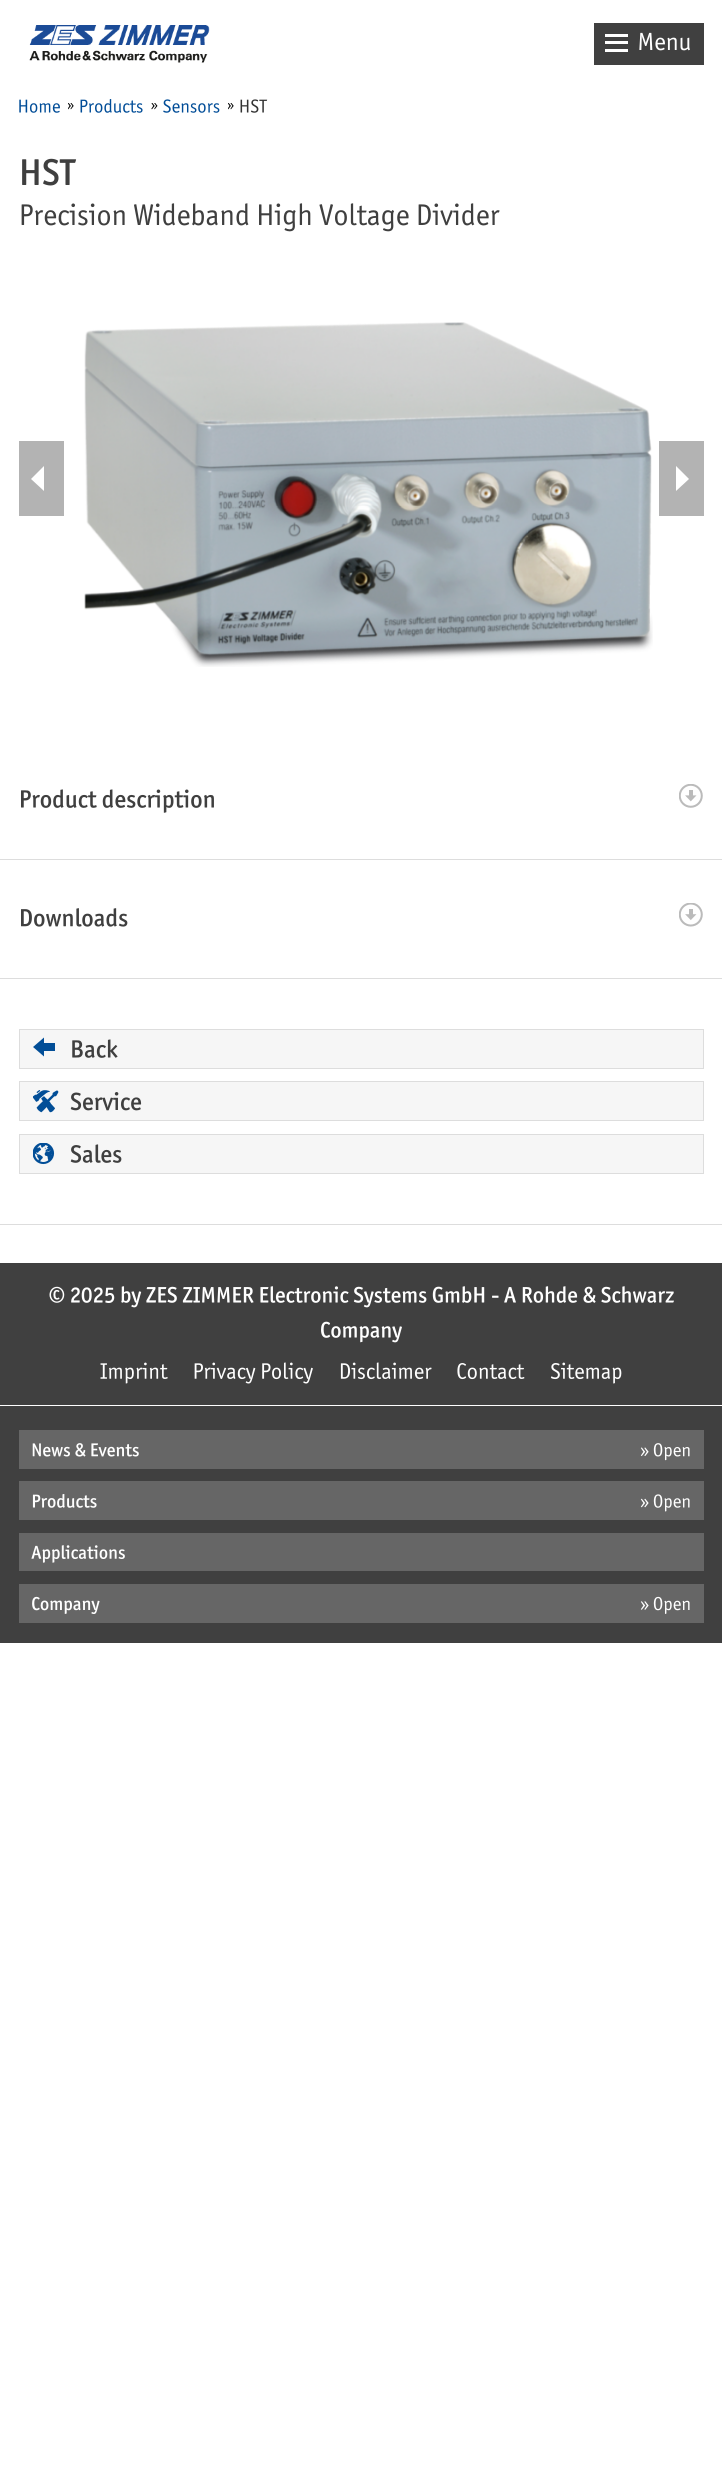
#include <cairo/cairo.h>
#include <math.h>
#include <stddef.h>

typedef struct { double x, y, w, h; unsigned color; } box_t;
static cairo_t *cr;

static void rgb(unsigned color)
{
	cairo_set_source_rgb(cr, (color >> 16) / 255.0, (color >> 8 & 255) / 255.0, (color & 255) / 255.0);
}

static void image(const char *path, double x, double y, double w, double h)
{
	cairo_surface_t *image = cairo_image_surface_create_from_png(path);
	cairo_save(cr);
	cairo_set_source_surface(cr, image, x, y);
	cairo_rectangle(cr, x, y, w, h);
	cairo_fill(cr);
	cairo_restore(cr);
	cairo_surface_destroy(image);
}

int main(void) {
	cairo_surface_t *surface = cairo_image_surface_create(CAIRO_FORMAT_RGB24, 722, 2482);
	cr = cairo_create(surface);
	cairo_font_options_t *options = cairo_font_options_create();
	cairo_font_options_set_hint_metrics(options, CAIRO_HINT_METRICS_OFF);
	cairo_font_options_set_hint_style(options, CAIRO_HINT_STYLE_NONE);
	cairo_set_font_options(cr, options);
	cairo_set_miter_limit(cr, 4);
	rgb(0xffffff);
	cairo_paint(cr);
	image("img/1.png", 29, 25, 181, 38);
	{
		static const box_t items[] = {
			{594, 23, 110, 42, 0x404040},
			{605, 49, 23, 3, 0xffffff},
			{605, 41, 23, 3, 0xffffff},
			{605, 34, 23, 3, 0xffffff},
		};
		for (size_t i = 0; i < sizeof items / sizeof *items; i++) {
			rgb(items[i].color);
			cairo_rectangle(cr, items[i].x, items[i].y, items[i].w, items[i].h);
			cairo_fill(cr);
		}
	}
	image("img/2.png", 639, 32, 51, 19);
	image("img/3.png", 19, 99, 41, 14);
	image("img/4.png", 68, 103, 6, 7);
	image("img/5.png", 80, 99, 63, 14);
	image("img/6.png", 151, 103, 7, 7);
	image("img/7.png", 163, 99, 57, 14);
	image("img/4.png", 228, 103, 6, 7);
	image("img/8.png", 240, 99, 28, 14);
	rgb(0xdddddd);
	cairo_rectangle(cr, 0, 1224, 722, 1);
	cairo_fill(cr);
	image("img/9.png", 22, 158, 55, 28);
	image("img/10.png", 21, 203, 479, 29);
	rgb(0xb3b3b3);
	cairo_rectangle(cr, 19, 441, 45, 75);
	cairo_fill(cr);
	rgb(0xffffff);
	cairo_new_path(cr);
	cairo_move_to(cr, 44, 466);
	cairo_line_to(cr, 44, 491);
	cairo_line_to(cr, 31, 479);
	cairo_close_path(cr);
	cairo_fill(cr);
	image("img/11.png", 84, 322, 569, 345);
	rgb(0xb3b3b3);
	cairo_rectangle(cr, 659, 441, 45, 75);
	cairo_fill(cr);
	rgb(0xffffff);
	cairo_new_path(cr);
	cairo_move_to(cr, 676, 491);
	cairo_line_to(cr, 676, 466);
	cairo_line_to(cr, 689, 479);
	cairo_close_path(cr);
	cairo_fill(cr);
	rgb(0xdddddd);
	cairo_rectangle(cr, 0, 859, 722, 1);
	cairo_fill(cr);
	image("img/12.png", 21, 789, 193, 24);
	image("img/13.png", 679, 784, 24, 24);
	cairo_rectangle(cr, 0, 978, 722, 1);
	cairo_fill(cr);
	image("img/14.png", 21, 908, 107, 19);
	image("img/15.png", 679, 903, 24, 24);
	rgb(0xf6f6f6);
	cairo_rectangle(cr, 19.5, 1029.5, 684, 39);
	cairo_fill_preserve(cr);
	rgb(0xdddddd);
	cairo_set_line_width(cr, 1);
	cairo_stroke(cr);
	rgb(0x024e97);
	cairo_new_path(cr);
	cairo_move_to(cr, 44, 1056.5);
	cairo_line_to(cr, 33, 1047);
	cairo_line_to(cr, 44, 1037.5);
	cairo_close_path(cr);
	cairo_fill(cr);
	cairo_rectangle(cr, 44, 1043, 11, 8);
	cairo_fill(cr);
	image("img/16.png", 72, 1039, 46, 19);
	rgb(0xf6f6f6);
	cairo_rectangle(cr, 19.5, 1081.5, 684, 39);
	cairo_fill_preserve(cr);
	rgb(0xdddddd);
	cairo_stroke(cr);
	image("img/17.png", 33, 1090, 26, 23);
	image("img/18.png", 70, 1092, 72, 19);
	rgb(0xf6f6f6);
	cairo_rectangle(cr, 19.5, 1134.5, 684, 39);
	cairo_fill_preserve(cr);
	rgb(0xdddddd);
	cairo_stroke(cr);
	image("img/19.png", 33, 1143, 22, 22);
	image("img/20.png", 70, 1144, 52, 19);
	rgb(0x404040);
	cairo_rectangle(cr, 0, 1263, 722, 380);
	cairo_fill(cr);
	rgb(0xffffff);
	cairo_rectangle(cr, 0, 1405, 722, 1);
	cairo_fill(cr);
	image("img/21.png", 49, 1286, 66, 17);
	image("img/22.png", 121, 1286, 364, 22);
	image("img/23.png", 492, 1286, 182, 17);
	image("img/24.png", 321, 1321, 81, 22);
	image("img/25.png", 100, 1362, 68, 22);
	image("img/26.png", 194, 1362, 119, 22);
	image("img/27.png", 340, 1362, 92, 18);
	image("img/28.png", 457, 1363, 68, 17);
	image("img/29.png", 550, 1362, 72, 22);
	rgb(0x666666);
	cairo_rectangle(cr, 19, 1430, 685, 39);
	cairo_fill(cr);
	image("img/30.png", 32, 1443, 107, 14);
	image("img/31.png", 640, 1443, 50, 18);
	cairo_rectangle(cr, 19, 1481, 685, 39);
	cairo_fill(cr);
	image("img/32.png", 32, 1494, 65, 14);
	image("img/33.png", 640, 1494, 50, 18);
	cairo_rectangle(cr, 19, 1533, 685, 38);
	cairo_fill(cr);
	image("img/34.png", 31, 1545, 94, 18);
	cairo_rectangle(cr, 19, 1584, 685, 39);
	cairo_fill(cr);
	image("img/35.png", 32, 1596, 68, 18);
	image("img/36.png", 640, 1596, 50, 18);
	cairo_surface_write_to_png(surface, "page.png");
	cairo_font_options_destroy(options);
	cairo_destroy(cr);
	cairo_surface_destroy(surface);
	return 0;
}
